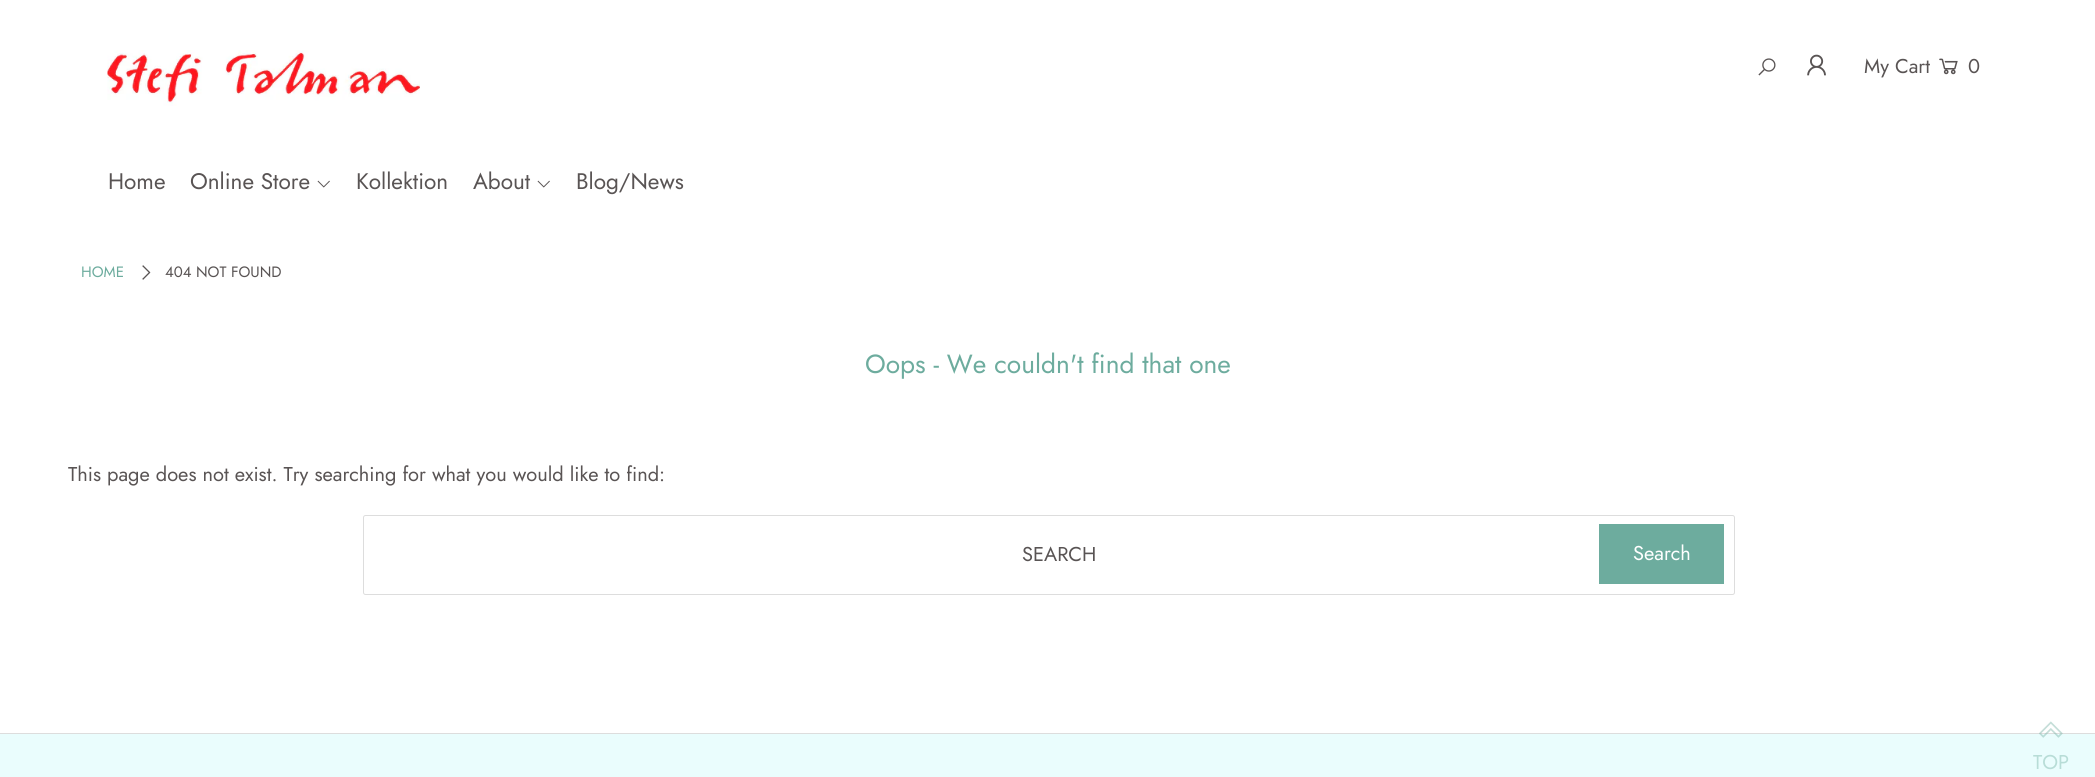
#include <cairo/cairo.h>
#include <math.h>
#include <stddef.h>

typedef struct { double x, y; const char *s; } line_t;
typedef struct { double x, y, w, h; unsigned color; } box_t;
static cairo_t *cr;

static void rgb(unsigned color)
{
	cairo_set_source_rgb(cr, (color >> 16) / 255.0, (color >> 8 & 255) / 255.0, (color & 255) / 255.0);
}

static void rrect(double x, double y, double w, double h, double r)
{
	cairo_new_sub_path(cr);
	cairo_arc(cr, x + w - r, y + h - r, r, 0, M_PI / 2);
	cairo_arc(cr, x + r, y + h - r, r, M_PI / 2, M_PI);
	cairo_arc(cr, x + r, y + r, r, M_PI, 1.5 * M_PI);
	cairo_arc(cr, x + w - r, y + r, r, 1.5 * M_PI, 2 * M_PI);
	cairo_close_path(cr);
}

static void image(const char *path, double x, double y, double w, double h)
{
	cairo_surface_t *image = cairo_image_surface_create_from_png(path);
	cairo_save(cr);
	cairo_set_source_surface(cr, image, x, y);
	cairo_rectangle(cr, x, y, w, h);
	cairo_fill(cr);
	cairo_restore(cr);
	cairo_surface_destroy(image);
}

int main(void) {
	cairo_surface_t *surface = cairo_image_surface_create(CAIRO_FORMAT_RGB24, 2095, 777);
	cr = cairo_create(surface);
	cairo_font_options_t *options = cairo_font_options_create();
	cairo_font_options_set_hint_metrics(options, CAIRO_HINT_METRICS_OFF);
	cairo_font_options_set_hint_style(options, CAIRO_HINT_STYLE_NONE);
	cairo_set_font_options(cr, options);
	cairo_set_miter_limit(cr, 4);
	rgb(0xffffff);
	cairo_paint(cr);
	image("img/1.png", 107, 50, 313, 56);
	image("img/2.png", 1758, 58, 18, 18);
	image("img/3.png", 1807, 54, 19, 22);
	image("img/4.png", 1939, 58, 19, 17);
	image("img/5.png", 317, 180, 13, 8);
	image("img/5.png", 537, 180, 13, 8);
	image("img/6.png", 142, 265, 9, 15);
	rrect(363.5, 515.5, 1371, 79, 2);
	rgb(0xdddddd);
	cairo_set_line_width(cr, 1);
	cairo_stroke(cr);
	{
		static const box_t items[] = {
			{1599, 524, 125, 60, 0x6dac9e},
			{0, 734, 2095, 43, 0xeafdfd},
			{0, 733, 2095, 1, 0xdddddd},
		};
		for (size_t i = 0; i < sizeof items / sizeof *items; i++) {
			rgb(items[i].color);
			cairo_rectangle(cr, items[i].x, items[i].y, items[i].w, items[i].h);
			cairo_fill(cr);
		}
	}
	image("img/7.png", 2039, 721, 24, 17);
	cairo_select_font_face(cr, "Jost", CAIRO_FONT_SLANT_NORMAL, CAIRO_FONT_WEIGHT_NORMAL);
	cairo_set_font_size(cr, 20);
	rgb(0x595454);
	cairo_move_to(cr, 1864, 73);
	cairo_show_text(cr, "My Cart");
	cairo_move_to(cr, 1968, 73);
	cairo_show_text(cr, "0");
	cairo_set_font_size(cr, 22.5);
	{
		static const line_t items[] = {
			{108, 189, "Home"},
			{190, 189, "Online Store"},
			{356, 189, "Kollektion"},
			{473, 189, "About"},
			{576, 189, "Blog/News"},
		};
		for (size_t i = 0; i < sizeof items / sizeof *items; i++) {
			cairo_move_to(cr, items[i].x, items[i].y);
			cairo_show_text(cr, items[i].s);
		}
	}
	cairo_set_font_size(cr, 15);
	rgb(0x6dac9e);
	cairo_move_to(cr, 81, 277);
	cairo_show_text(cr, "HOME");
	rgb(0x595454);
	cairo_move_to(cr, 165, 277);
	cairo_show_text(cr, "404 NOT FOUND");
	cairo_set_font_size(cr, 26.25);
	rgb(0x6dac9e);
	cairo_move_to(cr, 865, 373);
	cairo_show_text(cr, "Oops - We couldn't find that one");
	cairo_set_font_size(cr, 20);
	rgb(0x595454);
	cairo_move_to(cr, 68, 481);
	cairo_show_text(cr, "This page does not exist. Try searching for what you would like to find:");
	cairo_move_to(cr, 1022, 561);
	cairo_show_text(cr, "SEARCH");
	rgb(0xffffff);
	cairo_move_to(cr, 1633, 560);
	cairo_show_text(cr, "Search");
	rgb(0xb8ddd7);
	cairo_move_to(cr, 2033, 769);
	cairo_show_text(cr, "TOP");
	cairo_surface_write_to_png(surface, "page.png");
	cairo_font_options_destroy(options);
	cairo_destroy(cr);
	cairo_surface_destroy(surface);
	return 0;
}
